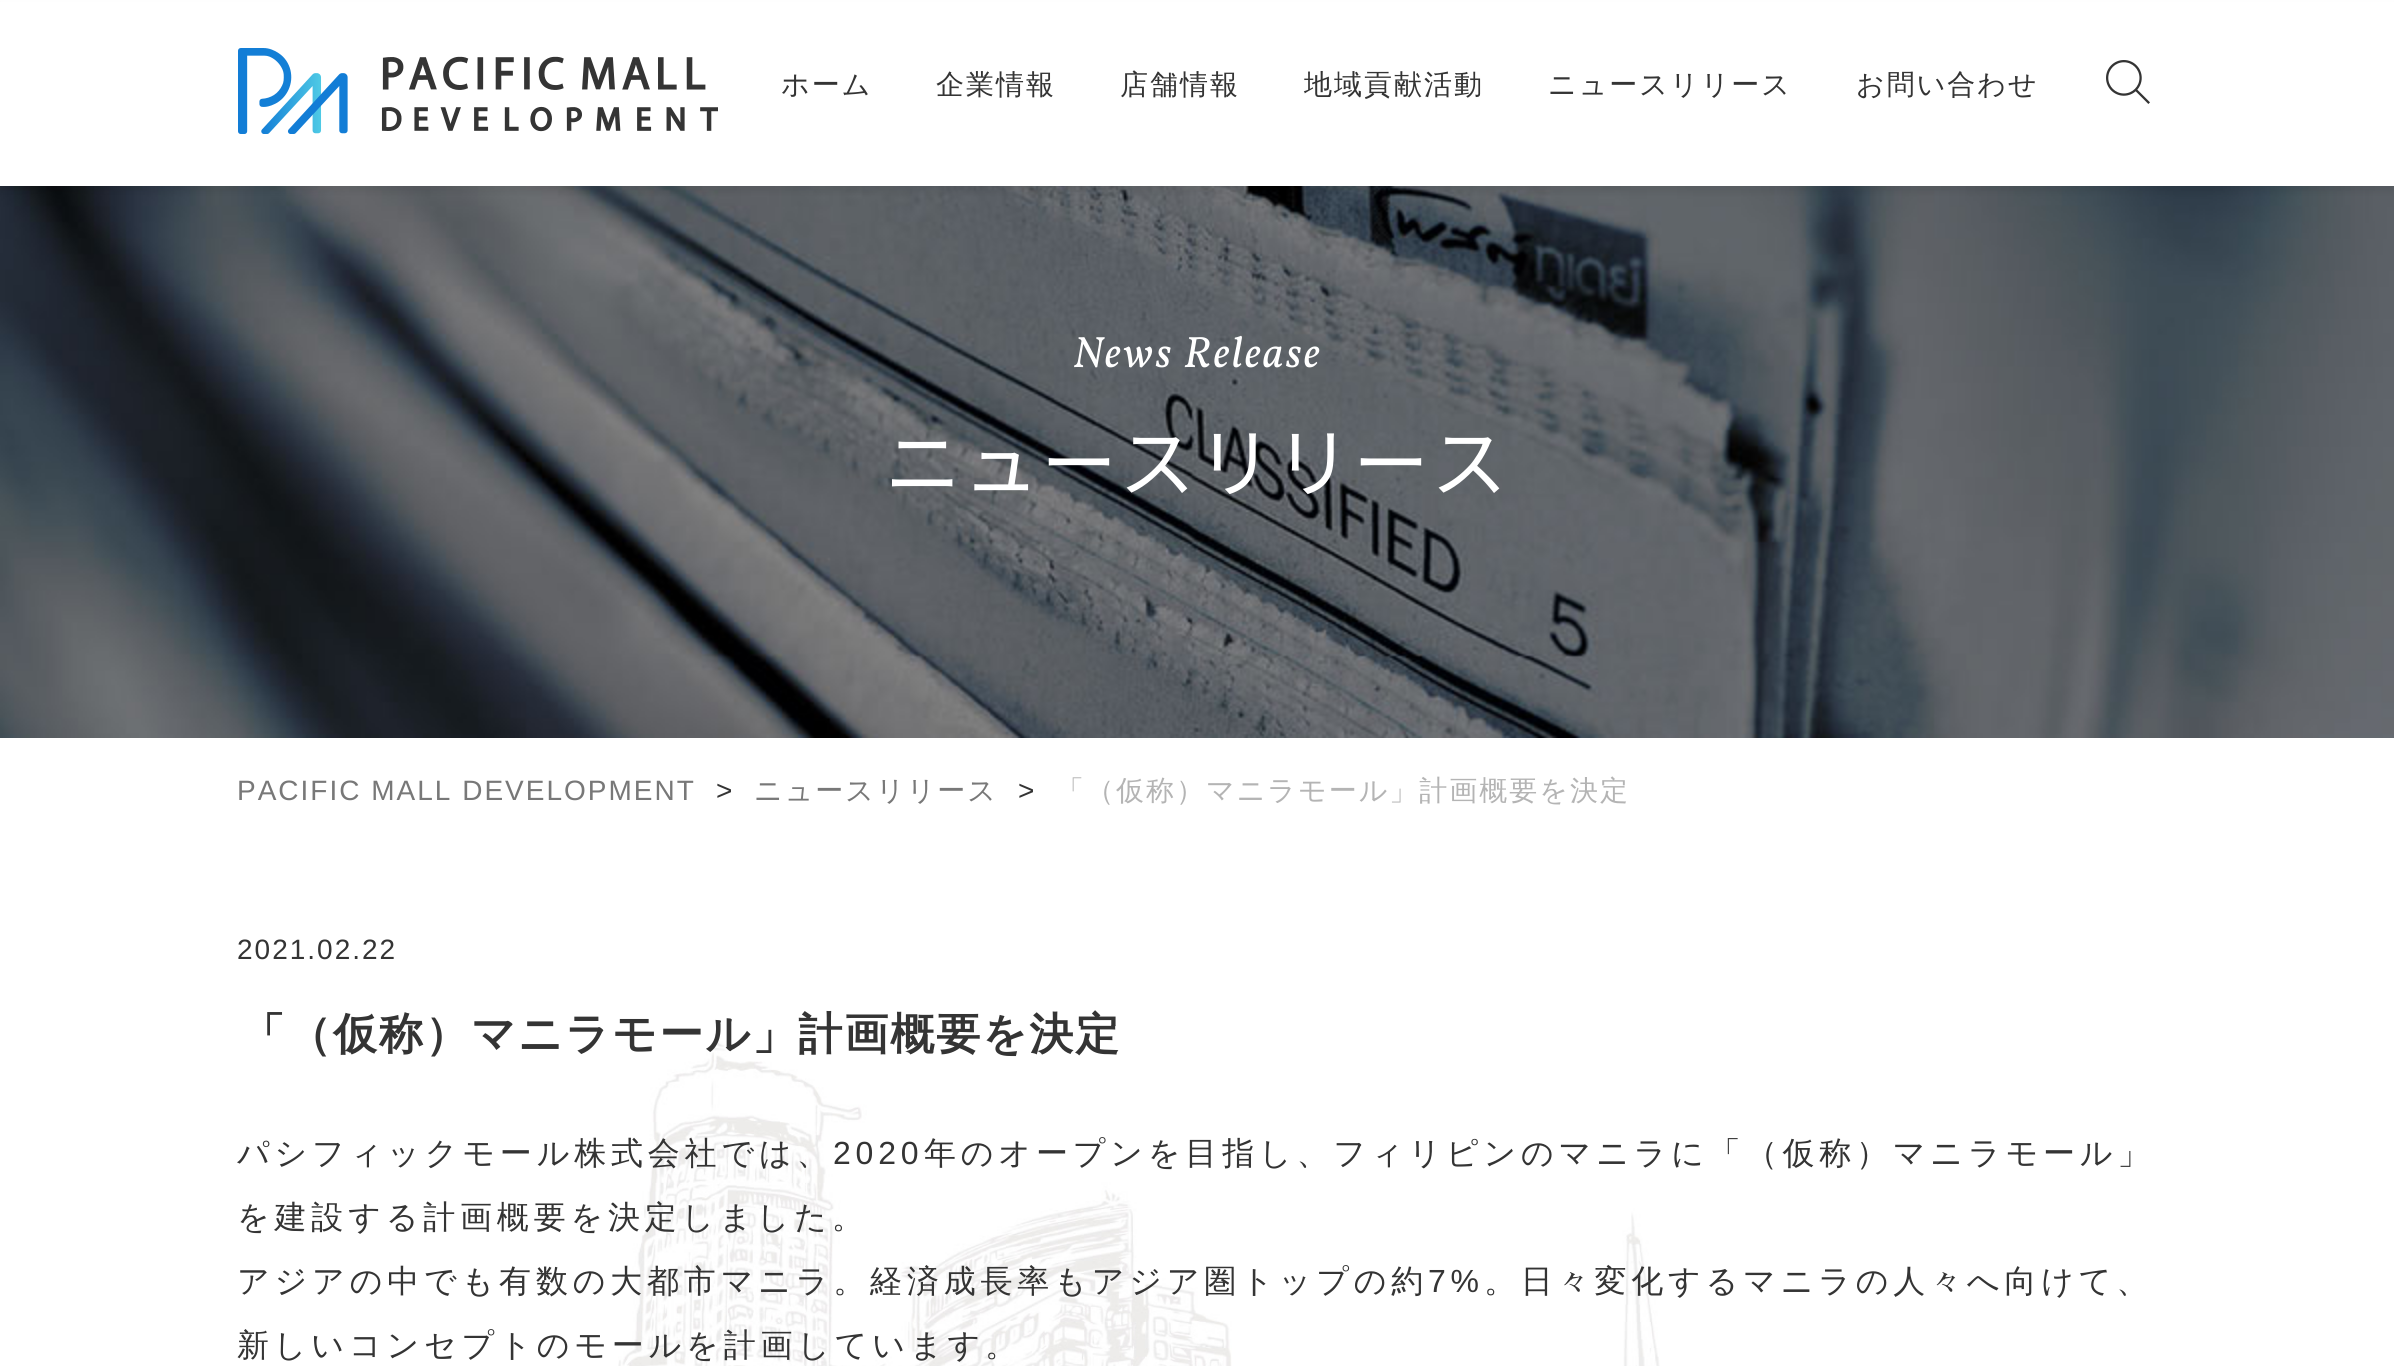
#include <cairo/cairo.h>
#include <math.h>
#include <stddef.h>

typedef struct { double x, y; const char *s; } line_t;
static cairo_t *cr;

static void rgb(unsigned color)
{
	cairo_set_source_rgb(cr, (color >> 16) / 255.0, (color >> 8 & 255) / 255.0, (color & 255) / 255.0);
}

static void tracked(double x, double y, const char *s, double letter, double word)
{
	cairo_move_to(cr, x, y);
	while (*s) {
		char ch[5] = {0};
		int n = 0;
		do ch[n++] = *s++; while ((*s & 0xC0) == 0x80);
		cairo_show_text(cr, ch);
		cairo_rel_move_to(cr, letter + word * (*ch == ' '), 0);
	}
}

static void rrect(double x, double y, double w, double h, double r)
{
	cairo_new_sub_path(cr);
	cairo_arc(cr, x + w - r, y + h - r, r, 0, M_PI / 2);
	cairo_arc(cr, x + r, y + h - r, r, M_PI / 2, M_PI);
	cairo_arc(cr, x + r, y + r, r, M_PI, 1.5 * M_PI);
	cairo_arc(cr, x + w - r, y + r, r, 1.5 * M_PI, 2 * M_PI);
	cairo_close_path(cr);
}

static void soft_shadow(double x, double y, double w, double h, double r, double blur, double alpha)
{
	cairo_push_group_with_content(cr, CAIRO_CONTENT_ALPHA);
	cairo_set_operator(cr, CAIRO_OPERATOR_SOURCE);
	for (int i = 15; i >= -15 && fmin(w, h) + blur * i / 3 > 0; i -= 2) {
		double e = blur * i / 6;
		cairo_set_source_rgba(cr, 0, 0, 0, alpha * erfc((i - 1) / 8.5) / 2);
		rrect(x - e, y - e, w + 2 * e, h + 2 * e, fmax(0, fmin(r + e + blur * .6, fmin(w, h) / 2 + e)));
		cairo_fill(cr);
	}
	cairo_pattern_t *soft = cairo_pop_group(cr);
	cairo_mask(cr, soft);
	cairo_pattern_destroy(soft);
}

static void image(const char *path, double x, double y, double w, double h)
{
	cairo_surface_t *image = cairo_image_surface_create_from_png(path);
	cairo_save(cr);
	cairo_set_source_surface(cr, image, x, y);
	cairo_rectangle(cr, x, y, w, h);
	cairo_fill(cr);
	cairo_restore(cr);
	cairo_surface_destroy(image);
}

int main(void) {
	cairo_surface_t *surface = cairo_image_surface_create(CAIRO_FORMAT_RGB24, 2394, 1366);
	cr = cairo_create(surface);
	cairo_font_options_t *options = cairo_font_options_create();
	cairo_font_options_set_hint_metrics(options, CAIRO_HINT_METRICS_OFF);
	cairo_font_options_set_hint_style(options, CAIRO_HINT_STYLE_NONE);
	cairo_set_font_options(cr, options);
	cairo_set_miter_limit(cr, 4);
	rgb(0xffffff);
	cairo_paint(cr);
	image("img/3.png", 0, 186, 2394, 552);
	rgb(0x000000);
	soft_shadow(0, 6, 2394, 186, 0, 4, 0.07);
	rgb(0xffffff);
	cairo_rectangle(cr, 0, 2, 2394, 184);
	cairo_fill(cr);
	image("img/1.png", 238, 48, 480, 86);
	image("img/2.png", 2106, 60, 44, 44);
	image("img/4.png", 618, 1041, 1042, 325);
	cairo_select_font_face(cr, "WenQuanYi Zen Hei Medium", CAIRO_FONT_SLANT_NORMAL, CAIRO_FONT_WEIGHT_NORMAL);
	cairo_set_font_size(cr, 28);
	rgb(0x343434);
	{
		static const line_t items[] = {
			{781, 94, "ホーム"},
			{936, 94, "企業情報"},
			{1120, 94, "店舗情報"},
			{1304, 94, "地域貢献活動"},
			{1548, 94, "ニュースリリース"},
			{1856, 94, "お問い合わせ"},
		};
		for (size_t i = 0; i < sizeof items / sizeof *items; i++) {
			tracked(items[i].x, items[i].y, items[i].s, 2, 0);
		}
	}
	cairo_select_font_face(cr, "Vollkorn", CAIRO_FONT_SLANT_ITALIC, CAIRO_FONT_WEIGHT_NORMAL);
	cairo_set_font_size(cr, 44);
	rgb(0xffffff);
	tracked(1073, 367, "News Release", 2, 0);
	cairo_select_font_face(cr, "Noto Sans JP", CAIRO_FONT_SLANT_NORMAL, CAIRO_FONT_WEIGHT_NORMAL);
	cairo_set_font_size(cr, 76);
	tracked(885, 491, "ニュースリリース", 2, 0);
	cairo_select_font_face(cr, "Liberation Sans", CAIRO_FONT_SLANT_NORMAL, CAIRO_FONT_WEIGHT_NORMAL);
	cairo_set_font_size(cr, 28);
	rgb(0x787878);
	tracked(237, 800, "PACIFIC MALL DEVELOPMENT", 2, 0);
	rgb(0x343434);
	tracked(716, 800, ">", 2, 0);
	cairo_select_font_face(cr, "WenQuanYi Zen Hei Medium", CAIRO_FONT_SLANT_NORMAL, CAIRO_FONT_WEIGHT_NORMAL);
	rgb(0x787878);
	tracked(754, 800, "ニュースリリース", 2, 0);
	cairo_select_font_face(cr, "Liberation Sans", CAIRO_FONT_SLANT_NORMAL, CAIRO_FONT_WEIGHT_NORMAL);
	rgb(0x343434);
	tracked(1018, 800, ">", 2, 0);
	cairo_select_font_face(cr, "WenQuanYi Zen Hei Medium", CAIRO_FONT_SLANT_NORMAL, CAIRO_FONT_WEIGHT_NORMAL);
	rgb(0xb4b4b4);
	tracked(1056, 800, "「（仮称）マニラモール」計画概要を決定", 2, 0);
	cairo_select_font_face(cr, "Liberation Sans", CAIRO_FONT_SLANT_NORMAL, CAIRO_FONT_WEIGHT_NORMAL);
	rgb(0x343434);
	tracked(237, 959, "2021.02.22", 2, 0);
	cairo_select_font_face(cr, "WenQuanYi Zen Hei", CAIRO_FONT_SLANT_NORMAL, CAIRO_FONT_WEIGHT_BOLD);
	cairo_set_font_size(cr, 44);
	tracked(241, 1049, "「（仮称）マニラモール」計画概要を決定", 2, 0);
	cairo_select_font_face(cr, "WenQuanYi Zen Hei Medium", CAIRO_FONT_SLANT_NORMAL, CAIRO_FONT_WEIGHT_NORMAL);
	cairo_set_font_size(cr, 32);
	tracked(237, 1164, "パシフィックモール株式会社では、", 4.8, 0);
	cairo_select_font_face(cr, "Liberation Sans", CAIRO_FONT_SLANT_NORMAL, CAIRO_FONT_WEIGHT_NORMAL);
	tracked(833, 1164, "2020", 4.8, 0);
	cairo_select_font_face(cr, "WenQuanYi Zen Hei Medium", CAIRO_FONT_SLANT_NORMAL, CAIRO_FONT_WEIGHT_NORMAL);
	{
		static const line_t items[] = {
			{924, 1164, "年のオープンを目指し、フィリピンのマニラに「（仮称）マニラモール」"},
			{237, 1228, "を建設する計画概要を決定しました。"},
			{237, 1292, "アジアの中でも有数の大都市マニラ。経済成長率もアジア圏トップの約"},
		};
		for (size_t i = 0; i < sizeof items / sizeof *items; i++) {
			tracked(items[i].x, items[i].y, items[i].s, 4.8, 0);
		}
	}
	cairo_select_font_face(cr, "Liberation Sans", CAIRO_FONT_SLANT_NORMAL, CAIRO_FONT_WEIGHT_NORMAL);
	tracked(1428, 1292, "7%", 4.8, 0);
	cairo_select_font_face(cr, "WenQuanYi Zen Hei Medium", CAIRO_FONT_SLANT_NORMAL, CAIRO_FONT_WEIGHT_NORMAL);
	tracked(1484, 1292, "。日々変化するマニラの人々へ向けて、", 4.8, 0);
	tracked(237, 1356, "新しいコンセプトのモールを計画しています。", 4.8, 0);
	cairo_surface_write_to_png(surface, "page.png");
	cairo_font_options_destroy(options);
	cairo_destroy(cr);
	cairo_surface_destroy(surface);
	return 0;
}
